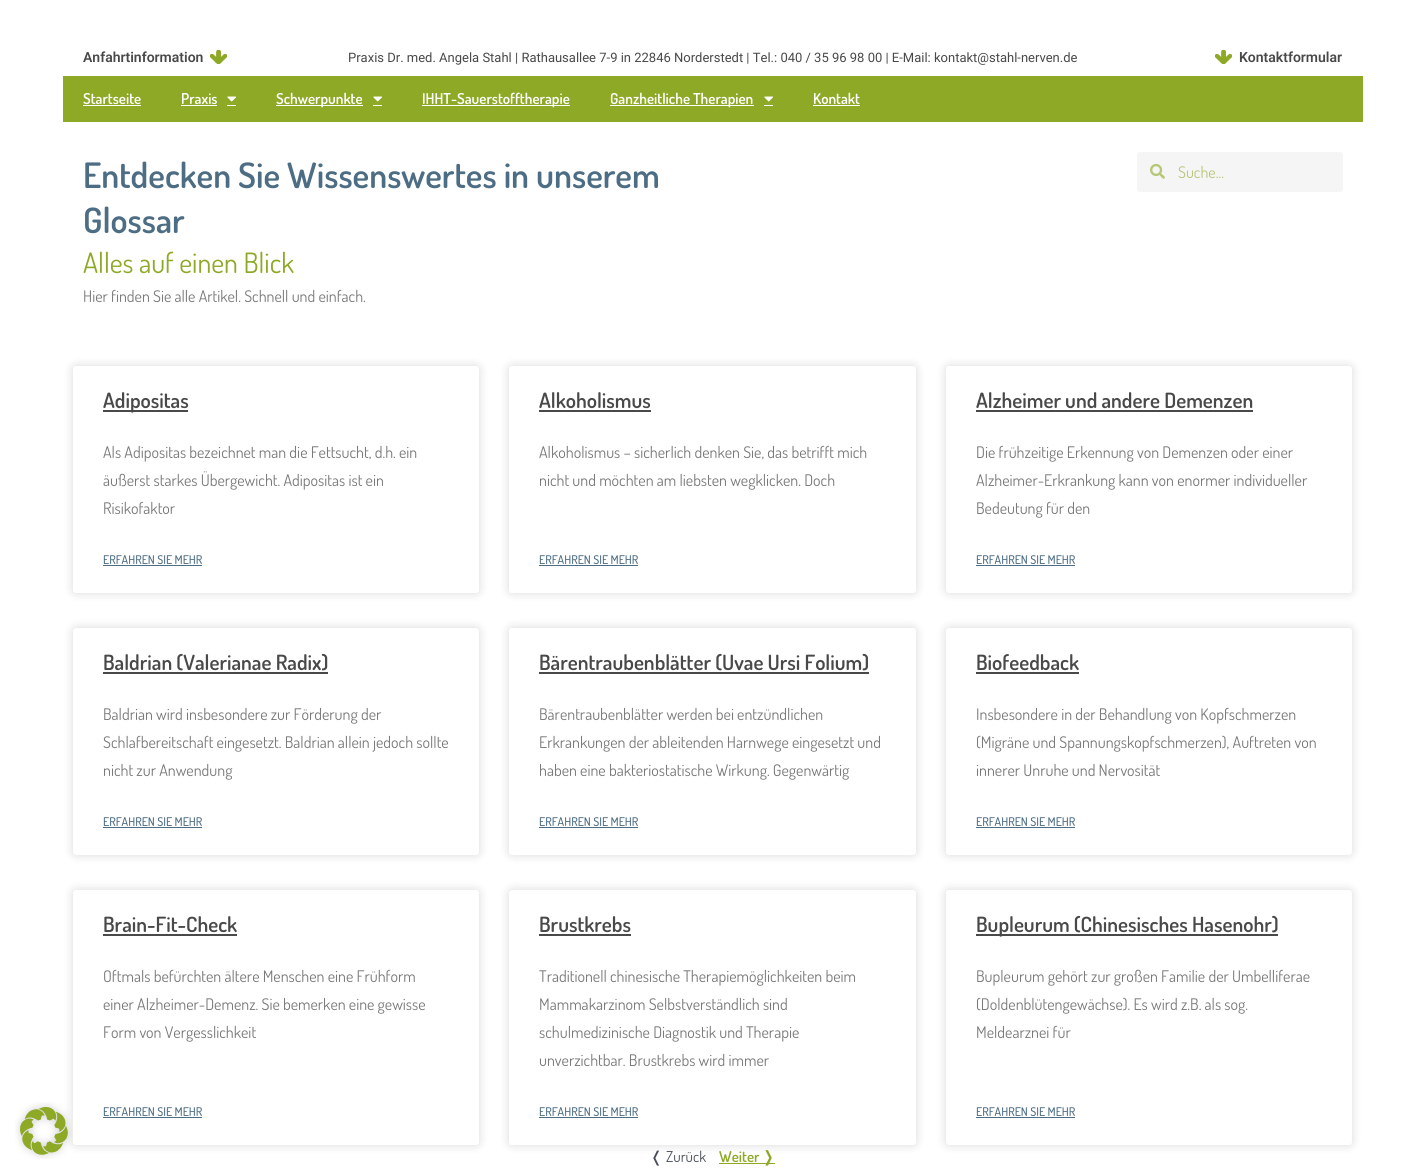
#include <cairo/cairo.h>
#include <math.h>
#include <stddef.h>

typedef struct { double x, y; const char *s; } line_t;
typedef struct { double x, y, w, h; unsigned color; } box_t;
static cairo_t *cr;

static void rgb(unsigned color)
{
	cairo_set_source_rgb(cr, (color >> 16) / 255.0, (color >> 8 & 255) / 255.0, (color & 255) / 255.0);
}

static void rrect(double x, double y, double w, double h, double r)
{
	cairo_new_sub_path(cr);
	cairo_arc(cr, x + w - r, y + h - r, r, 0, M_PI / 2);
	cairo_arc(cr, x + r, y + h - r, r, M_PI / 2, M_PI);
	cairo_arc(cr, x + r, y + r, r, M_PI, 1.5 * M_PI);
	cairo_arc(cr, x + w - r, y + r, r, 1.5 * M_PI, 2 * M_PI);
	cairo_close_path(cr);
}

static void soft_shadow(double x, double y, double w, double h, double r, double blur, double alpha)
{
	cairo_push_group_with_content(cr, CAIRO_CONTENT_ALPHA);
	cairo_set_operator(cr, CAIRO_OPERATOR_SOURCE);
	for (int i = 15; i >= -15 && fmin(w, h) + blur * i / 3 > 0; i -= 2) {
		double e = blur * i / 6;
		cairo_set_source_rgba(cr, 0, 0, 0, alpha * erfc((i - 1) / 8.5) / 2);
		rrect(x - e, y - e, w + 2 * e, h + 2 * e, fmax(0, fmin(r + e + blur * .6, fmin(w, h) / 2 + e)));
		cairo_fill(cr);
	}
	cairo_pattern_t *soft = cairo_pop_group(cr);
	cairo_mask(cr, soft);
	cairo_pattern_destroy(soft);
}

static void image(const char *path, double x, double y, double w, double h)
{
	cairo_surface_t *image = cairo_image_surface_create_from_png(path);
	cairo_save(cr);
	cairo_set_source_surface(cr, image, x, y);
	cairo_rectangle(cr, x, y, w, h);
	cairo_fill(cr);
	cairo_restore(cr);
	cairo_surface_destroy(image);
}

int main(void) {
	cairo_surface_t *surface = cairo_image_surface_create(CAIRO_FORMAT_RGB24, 1425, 1175);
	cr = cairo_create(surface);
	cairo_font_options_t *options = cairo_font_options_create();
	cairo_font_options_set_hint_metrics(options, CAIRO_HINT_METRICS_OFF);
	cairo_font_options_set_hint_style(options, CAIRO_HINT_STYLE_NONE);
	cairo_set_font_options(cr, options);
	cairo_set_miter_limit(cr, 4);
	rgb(0xffffff);
	cairo_paint(cr);
	rgb(0x000000);
	soft_shadow(73, 890, 406, 255, 3, 5, 0.15);
	image("img/1.png", 15, 1102, 57, 57);
	image("img/2.png", 210, 49, 17, 16);
	image("img/2.png", 1215, 49, 17, 16);
	{
		static const box_t items[] = {
			{63, 76, 1300, 46, 0x8da926},
			{83, 105, 58, 1, 0xffffff},
			{181, 105, 36, 1, 0xffffff},
		};
		for (size_t i = 0; i < sizeof items / sizeof *items; i++) {
			rgb(items[i].color);
			cairo_rectangle(cr, items[i].x, items[i].y, items[i].w, items[i].h);
			cairo_fill(cr);
		}
	}
	image("img/3.png", 227, 96, 9, 6);
	cairo_rectangle(cr, 227, 105, 9, 1);
	cairo_fill(cr);
	cairo_rectangle(cr, 276, 105, 87, 1);
	cairo_fill(cr);
	image("img/3.png", 373, 96, 9, 6);
	{
		static const box_t items[] = {
			{373, 105, 9, 1, 0xffffff},
			{422, 105, 148, 1, 0xffffff},
			{610, 105, 144, 1, 0xffffff},
		};
		for (size_t i = 0; i < sizeof items / sizeof *items; i++) {
			rgb(items[i].color);
			cairo_rectangle(cr, items[i].x, items[i].y, items[i].w, items[i].h);
			cairo_fill(cr);
		}
	}
	image("img/3.png", 764, 96, 9, 6);
	cairo_rectangle(cr, 764, 105, 9, 1);
	cairo_fill(cr);
	cairo_rectangle(cr, 813, 105, 47, 1);
	cairo_fill(cr);
	rgb(0xf5f5f5);
	rrect(1137, 152, 206, 40, 3);
	cairo_fill(cr);
	image("img/4.png", 1150, 163, 15, 16);
	rgb(0x000000);
	soft_shadow(73, 366, 406, 227, 3, 5, 0.15);
	rgb(0xffffff);
	rrect(73, 366, 406, 227, 3);
	cairo_fill(cr);
	rgb(0x494949);
	cairo_rectangle(cr, 103, 410, 85, 2);
	cairo_fill(cr);
	rgb(0x4d6d84);
	cairo_rectangle(cr, 103, 565, 99, 1);
	cairo_fill(cr);
	rgb(0x000000);
	soft_shadow(509, 366, 407, 227, 3, 5, 0.15);
	rgb(0xffffff);
	rrect(509, 366, 407, 227, 3);
	cairo_fill(cr);
	rgb(0x494949);
	cairo_rectangle(cr, 539, 410, 112, 2);
	cairo_fill(cr);
	rgb(0x4d6d84);
	cairo_rectangle(cr, 539, 565, 99, 1);
	cairo_fill(cr);
	rgb(0x000000);
	soft_shadow(946, 366, 406, 227, 3, 5, 0.15);
	rgb(0xffffff);
	rrect(946, 366, 406, 227, 3);
	cairo_fill(cr);
	rgb(0x494949);
	cairo_rectangle(cr, 976, 410, 277, 2);
	cairo_fill(cr);
	rgb(0x4d6d84);
	cairo_rectangle(cr, 976, 565, 99, 1);
	cairo_fill(cr);
	rgb(0x000000);
	soft_shadow(73, 628, 406, 227, 3, 5, 0.15);
	rgb(0xffffff);
	rrect(73, 628, 406, 227, 3);
	cairo_fill(cr);
	rgb(0x494949);
	cairo_rectangle(cr, 103, 672, 225, 2);
	cairo_fill(cr);
	rgb(0x4d6d84);
	cairo_rectangle(cr, 103, 827, 99, 1);
	cairo_fill(cr);
	rgb(0x000000);
	soft_shadow(509, 628, 407, 227, 3, 5, 0.15);
	rgb(0xffffff);
	rrect(509, 628, 407, 227, 3);
	cairo_fill(cr);
	rgb(0x494949);
	cairo_rectangle(cr, 539, 672, 330, 2);
	cairo_fill(cr);
	rgb(0x4d6d84);
	cairo_rectangle(cr, 539, 827, 99, 1);
	cairo_fill(cr);
	rgb(0x000000);
	soft_shadow(946, 628, 406, 227, 3, 5, 0.15);
	rgb(0xffffff);
	rrect(946, 628, 406, 227, 3);
	cairo_fill(cr);
	rgb(0x494949);
	cairo_rectangle(cr, 976, 672, 103, 2);
	cairo_fill(cr);
	rgb(0x4d6d84);
	cairo_rectangle(cr, 976, 827, 99, 1);
	cairo_fill(cr);
	rgb(0xffffff);
	rrect(73, 890, 406, 255, 3);
	cairo_fill(cr);
	rgb(0x494949);
	cairo_rectangle(cr, 103, 934, 134, 2);
	cairo_fill(cr);
	rgb(0x4d6d84);
	cairo_rectangle(cr, 103, 1117, 99, 1);
	cairo_fill(cr);
	rgb(0x000000);
	soft_shadow(509, 890, 407, 255, 3, 5, 0.15);
	rgb(0xffffff);
	rrect(509, 890, 407, 255, 3);
	cairo_fill(cr);
	rgb(0x494949);
	cairo_rectangle(cr, 539, 934, 92, 2);
	cairo_fill(cr);
	rgb(0x4d6d84);
	cairo_rectangle(cr, 539, 1117, 99, 1);
	cairo_fill(cr);
	rgb(0x000000);
	soft_shadow(946, 890, 406, 255, 3, 5, 0.15);
	rgb(0xffffff);
	rrect(946, 890, 406, 255, 3);
	cairo_fill(cr);
	{
		static const box_t items[] = {
			{976, 934, 302, 2, 0x494949},
			{976, 1117, 99, 1, 0x4d6d84},
			{719, 1163, 56, 1, 0x8da926},
		};
		for (size_t i = 0; i < sizeof items / sizeof *items; i++) {
			rgb(items[i].color);
			cairo_rectangle(cr, items[i].x, items[i].y, items[i].w, items[i].h);
			cairo_fill(cr);
		}
	}
	cairo_select_font_face(cr, "Roboto SemiBold", CAIRO_FONT_SLANT_NORMAL, CAIRO_FONT_WEIGHT_NORMAL);
	cairo_set_font_size(cr, 14);
	rgb(0x494949);
	cairo_move_to(cr, 83, 62);
	cairo_show_text(cr, "Anfahrtinformation");
	cairo_select_font_face(cr, "Roboto", CAIRO_FONT_SLANT_NORMAL, CAIRO_FONT_WEIGHT_NORMAL);
	cairo_set_font_size(cr, 13);
	cairo_move_to(cr, 348, 62);
	cairo_show_text(cr, "Praxis Dr. med. Angela Stahl | Rathausallee 7-9 in 22846 Norderstedt | Tel.: 040 / 35 96 98 00 | E-Mail: kontakt@stahl-nerven.de");
	cairo_select_font_face(cr, "Roboto SemiBold", CAIRO_FONT_SLANT_NORMAL, CAIRO_FONT_WEIGHT_NORMAL);
	cairo_set_font_size(cr, 14);
	cairo_move_to(cr, 1239, 62);
	cairo_show_text(cr, "Kontaktformular");
	cairo_select_font_face(cr, "Dosis SemiBold", CAIRO_FONT_SLANT_NORMAL, CAIRO_FONT_WEIGHT_NORMAL);
	cairo_set_font_size(cr, 15);
	rgb(0xffffff);
	{
		static const line_t items[] = {
			{83, 104, "Startseite"},
			{181, 104, "Praxis"},
			{276, 104, "Schwerpunkte"},
			{422, 104, "IHHT-Sauerstofftherapie"},
			{610, 104, "Ganzheitliche Therapien"},
			{813, 104, "Kontakt"},
		};
		for (size_t i = 0; i < sizeof items / sizeof *items; i++) {
			cairo_move_to(cr, items[i].x, items[i].y);
			cairo_show_text(cr, items[i].s);
		}
	}
	cairo_set_font_size(cr, 35);
	rgb(0x4d6d84);
	cairo_move_to(cr, 83, 188);
	cairo_show_text(cr, "Entdecken Sie Wissenswertes in unserem");
	cairo_move_to(cr, 83, 233);
	cairo_show_text(cr, "Glossar");
	cairo_select_font_face(cr, "Dosis", CAIRO_FONT_SLANT_NORMAL, CAIRO_FONT_WEIGHT_NORMAL);
	cairo_set_font_size(cr, 28);
	rgb(0x8da926);
	cairo_move_to(cr, 83, 273);
	cairo_show_text(cr, "Alles auf einen Blick");
	cairo_set_font_size(cr, 16);
	rgb(0x7a7a7a);
	cairo_move_to(cr, 83, 302);
	cairo_show_text(cr, "Hier finden Sie alle Artikel. Schnell und einfach.");
	rgb(0xb7c779);
	cairo_move_to(cr, 1178, 178);
	cairo_show_text(cr, "Suche...");
	cairo_select_font_face(cr, "Dosis SemiBold", CAIRO_FONT_SLANT_NORMAL, CAIRO_FONT_WEIGHT_NORMAL);
	cairo_set_font_size(cr, 21);
	rgb(0x494949);
	cairo_move_to(cr, 103, 408);
	cairo_show_text(cr, "Adipositas");
	cairo_select_font_face(cr, "Dosis", CAIRO_FONT_SLANT_NORMAL, CAIRO_FONT_WEIGHT_NORMAL);
	cairo_set_font_size(cr, 16);
	rgb(0x7a7a7a);
	{
		static const line_t items[] = {
			{103, 458, "Als Adipositas bezeichnet man die Fettsucht, d.h. ein"},
			{103, 486, "äußerst starkes Übergewicht. Adipositas ist ein"},
			{103, 514, "Risikofaktor"},
		};
		for (size_t i = 0; i < sizeof items / sizeof *items; i++) {
			cairo_move_to(cr, items[i].x, items[i].y);
			cairo_show_text(cr, items[i].s);
		}
	}
	cairo_select_font_face(cr, "Dosis Medium", CAIRO_FONT_SLANT_NORMAL, CAIRO_FONT_WEIGHT_NORMAL);
	cairo_set_font_size(cr, 12);
	rgb(0x4d6d84);
	cairo_move_to(cr, 103, 564);
	cairo_show_text(cr, "ERFAHREN SIE MEHR");
	cairo_select_font_face(cr, "Dosis SemiBold", CAIRO_FONT_SLANT_NORMAL, CAIRO_FONT_WEIGHT_NORMAL);
	cairo_set_font_size(cr, 21);
	rgb(0x494949);
	cairo_move_to(cr, 539, 408);
	cairo_show_text(cr, "Alkoholismus");
	cairo_select_font_face(cr, "Dosis", CAIRO_FONT_SLANT_NORMAL, CAIRO_FONT_WEIGHT_NORMAL);
	cairo_set_font_size(cr, 16);
	rgb(0x7a7a7a);
	cairo_move_to(cr, 539, 458);
	cairo_show_text(cr, "Alkoholismus – sicherlich denken Sie, das betrifft mich");
	cairo_move_to(cr, 539, 486);
	cairo_show_text(cr, "nicht und möchten am liebsten wegklicken. Doch");
	cairo_select_font_face(cr, "Dosis Medium", CAIRO_FONT_SLANT_NORMAL, CAIRO_FONT_WEIGHT_NORMAL);
	cairo_set_font_size(cr, 12);
	rgb(0x4d6d84);
	cairo_move_to(cr, 539, 564);
	cairo_show_text(cr, "ERFAHREN SIE MEHR");
	cairo_select_font_face(cr, "Dosis SemiBold", CAIRO_FONT_SLANT_NORMAL, CAIRO_FONT_WEIGHT_NORMAL);
	cairo_set_font_size(cr, 21);
	rgb(0x494949);
	cairo_move_to(cr, 976, 408);
	cairo_show_text(cr, "Alzheimer und andere Demenzen");
	cairo_select_font_face(cr, "Dosis", CAIRO_FONT_SLANT_NORMAL, CAIRO_FONT_WEIGHT_NORMAL);
	cairo_set_font_size(cr, 16);
	rgb(0x7a7a7a);
	{
		static const line_t items[] = {
			{976, 458, "Die frühzeitige Erkennung von Demenzen oder einer"},
			{976, 486, "Alzheimer-Erkrankung kann von enormer individueller"},
			{976, 514, "Bedeutung für den"},
		};
		for (size_t i = 0; i < sizeof items / sizeof *items; i++) {
			cairo_move_to(cr, items[i].x, items[i].y);
			cairo_show_text(cr, items[i].s);
		}
	}
	cairo_select_font_face(cr, "Dosis Medium", CAIRO_FONT_SLANT_NORMAL, CAIRO_FONT_WEIGHT_NORMAL);
	cairo_set_font_size(cr, 12);
	rgb(0x4d6d84);
	cairo_move_to(cr, 976, 564);
	cairo_show_text(cr, "ERFAHREN SIE MEHR");
	cairo_select_font_face(cr, "Dosis SemiBold", CAIRO_FONT_SLANT_NORMAL, CAIRO_FONT_WEIGHT_NORMAL);
	cairo_set_font_size(cr, 21);
	rgb(0x494949);
	cairo_move_to(cr, 103, 670);
	cairo_show_text(cr, "Baldrian (Valerianae Radix)");
	cairo_select_font_face(cr, "Dosis", CAIRO_FONT_SLANT_NORMAL, CAIRO_FONT_WEIGHT_NORMAL);
	cairo_set_font_size(cr, 16);
	rgb(0x7a7a7a);
	{
		static const line_t items[] = {
			{103, 720, "Baldrian wird insbesondere zur Förderung der"},
			{103, 748, "Schlafbereitschaft eingesetzt. Baldrian allein jedoch sollte"},
			{103, 776, "nicht zur Anwendung"},
		};
		for (size_t i = 0; i < sizeof items / sizeof *items; i++) {
			cairo_move_to(cr, items[i].x, items[i].y);
			cairo_show_text(cr, items[i].s);
		}
	}
	cairo_select_font_face(cr, "Dosis Medium", CAIRO_FONT_SLANT_NORMAL, CAIRO_FONT_WEIGHT_NORMAL);
	cairo_set_font_size(cr, 12);
	rgb(0x4d6d84);
	cairo_move_to(cr, 103, 826);
	cairo_show_text(cr, "ERFAHREN SIE MEHR");
	cairo_select_font_face(cr, "Dosis SemiBold", CAIRO_FONT_SLANT_NORMAL, CAIRO_FONT_WEIGHT_NORMAL);
	cairo_set_font_size(cr, 21);
	rgb(0x494949);
	cairo_move_to(cr, 539, 670);
	cairo_show_text(cr, "Bärentraubenblätter (Uvae Ursi Folium)");
	cairo_select_font_face(cr, "Dosis", CAIRO_FONT_SLANT_NORMAL, CAIRO_FONT_WEIGHT_NORMAL);
	cairo_set_font_size(cr, 16);
	rgb(0x7a7a7a);
	{
		static const line_t items[] = {
			{539, 720, "Bärentraubenblätter werden bei entzündlichen"},
			{539, 748, "Erkrankungen der ableitenden Harnwege eingesetzt und"},
			{539, 776, "haben eine bakteriostatische Wirkung. Gegenwärtig"},
		};
		for (size_t i = 0; i < sizeof items / sizeof *items; i++) {
			cairo_move_to(cr, items[i].x, items[i].y);
			cairo_show_text(cr, items[i].s);
		}
	}
	cairo_select_font_face(cr, "Dosis Medium", CAIRO_FONT_SLANT_NORMAL, CAIRO_FONT_WEIGHT_NORMAL);
	cairo_set_font_size(cr, 12);
	rgb(0x4d6d84);
	cairo_move_to(cr, 539, 826);
	cairo_show_text(cr, "ERFAHREN SIE MEHR");
	cairo_select_font_face(cr, "Dosis SemiBold", CAIRO_FONT_SLANT_NORMAL, CAIRO_FONT_WEIGHT_NORMAL);
	cairo_set_font_size(cr, 21);
	rgb(0x494949);
	cairo_move_to(cr, 976, 670);
	cairo_show_text(cr, "Biofeedback");
	cairo_select_font_face(cr, "Dosis", CAIRO_FONT_SLANT_NORMAL, CAIRO_FONT_WEIGHT_NORMAL);
	cairo_set_font_size(cr, 16);
	rgb(0x7a7a7a);
	{
		static const line_t items[] = {
			{976, 720, "Insbesondere in der Behandlung von Kopfschmerzen"},
			{976, 748, "(Migräne und Spannungskopfschmerzen), Auftreten von"},
			{976, 776, "innerer Unruhe und Nervosität"},
		};
		for (size_t i = 0; i < sizeof items / sizeof *items; i++) {
			cairo_move_to(cr, items[i].x, items[i].y);
			cairo_show_text(cr, items[i].s);
		}
	}
	cairo_select_font_face(cr, "Dosis Medium", CAIRO_FONT_SLANT_NORMAL, CAIRO_FONT_WEIGHT_NORMAL);
	cairo_set_font_size(cr, 12);
	rgb(0x4d6d84);
	cairo_move_to(cr, 976, 826);
	cairo_show_text(cr, "ERFAHREN SIE MEHR");
	cairo_select_font_face(cr, "Dosis SemiBold", CAIRO_FONT_SLANT_NORMAL, CAIRO_FONT_WEIGHT_NORMAL);
	cairo_set_font_size(cr, 21);
	rgb(0x494949);
	cairo_move_to(cr, 103, 932);
	cairo_show_text(cr, "Brain-Fit-Check");
	cairo_select_font_face(cr, "Dosis", CAIRO_FONT_SLANT_NORMAL, CAIRO_FONT_WEIGHT_NORMAL);
	cairo_set_font_size(cr, 16);
	rgb(0x7a7a7a);
	{
		static const line_t items[] = {
			{103, 982, "Oftmals befürchten ältere Menschen eine Frühform"},
			{103, 1010, "einer Alzheimer-Demenz. Sie bemerken eine gewisse"},
			{103, 1038, "Form von Vergesslichkeit"},
		};
		for (size_t i = 0; i < sizeof items / sizeof *items; i++) {
			cairo_move_to(cr, items[i].x, items[i].y);
			cairo_show_text(cr, items[i].s);
		}
	}
	cairo_select_font_face(cr, "Dosis Medium", CAIRO_FONT_SLANT_NORMAL, CAIRO_FONT_WEIGHT_NORMAL);
	cairo_set_font_size(cr, 12);
	rgb(0x4d6d84);
	cairo_move_to(cr, 103, 1116);
	cairo_show_text(cr, "ERFAHREN SIE MEHR");
	cairo_select_font_face(cr, "Dosis SemiBold", CAIRO_FONT_SLANT_NORMAL, CAIRO_FONT_WEIGHT_NORMAL);
	cairo_set_font_size(cr, 21);
	rgb(0x494949);
	cairo_move_to(cr, 539, 932);
	cairo_show_text(cr, "Brustkrebs");
	cairo_select_font_face(cr, "Dosis", CAIRO_FONT_SLANT_NORMAL, CAIRO_FONT_WEIGHT_NORMAL);
	cairo_set_font_size(cr, 16);
	rgb(0x7a7a7a);
	{
		static const line_t items[] = {
			{539, 982, "Traditionell chinesische Therapiemöglichkeiten beim"},
			{539, 1010, "Mammakarzinom Selbstverständlich sind"},
			{539, 1038, "schulmedizinische Diagnostik und Therapie"},
			{539, 1066, "unverzichtbar. Brustkrebs wird immer"},
		};
		for (size_t i = 0; i < sizeof items / sizeof *items; i++) {
			cairo_move_to(cr, items[i].x, items[i].y);
			cairo_show_text(cr, items[i].s);
		}
	}
	cairo_select_font_face(cr, "Dosis Medium", CAIRO_FONT_SLANT_NORMAL, CAIRO_FONT_WEIGHT_NORMAL);
	cairo_set_font_size(cr, 12);
	rgb(0x4d6d84);
	cairo_move_to(cr, 539, 1116);
	cairo_show_text(cr, "ERFAHREN SIE MEHR");
	cairo_select_font_face(cr, "Dosis SemiBold", CAIRO_FONT_SLANT_NORMAL, CAIRO_FONT_WEIGHT_NORMAL);
	cairo_set_font_size(cr, 21);
	rgb(0x494949);
	cairo_move_to(cr, 976, 932);
	cairo_show_text(cr, "Bupleurum (Chinesisches Hasenohr)");
	cairo_select_font_face(cr, "Dosis", CAIRO_FONT_SLANT_NORMAL, CAIRO_FONT_WEIGHT_NORMAL);
	cairo_set_font_size(cr, 16);
	rgb(0x7a7a7a);
	{
		static const line_t items[] = {
			{976, 982, "Bupleurum gehört zur großen Familie der Umbelliferae"},
			{976, 1010, "(Doldenblütengewächse). Es wird z.B. als sog."},
			{976, 1038, "Meldearznei für"},
		};
		for (size_t i = 0; i < sizeof items / sizeof *items; i++) {
			cairo_move_to(cr, items[i].x, items[i].y);
			cairo_show_text(cr, items[i].s);
		}
	}
	cairo_select_font_face(cr, "Dosis Medium", CAIRO_FONT_SLANT_NORMAL, CAIRO_FONT_WEIGHT_NORMAL);
	cairo_set_font_size(cr, 12);
	rgb(0x4d6d84);
	cairo_move_to(cr, 976, 1116);
	cairo_show_text(cr, "ERFAHREN SIE MEHR");
	cairo_select_font_face(cr, "DejaVu Sans", CAIRO_FONT_SLANT_NORMAL, CAIRO_FONT_WEIGHT_NORMAL);
	cairo_set_font_size(cr, 15);
	rgb(0x4b4f58);
	cairo_move_to(cr, 650, 1162);
	cairo_show_text(cr, "❬");
	cairo_select_font_face(cr, "Dosis", CAIRO_FONT_SLANT_NORMAL, CAIRO_FONT_WEIGHT_NORMAL);
	cairo_move_to(cr, 666, 1162);
	cairo_show_text(cr, "Zurück");
	cairo_select_font_face(cr, "Dosis SemiBold", CAIRO_FONT_SLANT_NORMAL, CAIRO_FONT_WEIGHT_NORMAL);
	rgb(0x8da926);
	cairo_move_to(cr, 719, 1162);
	cairo_show_text(cr, "Weiter");
	cairo_select_font_face(cr, "DejaVu Sans", CAIRO_FONT_SLANT_NORMAL, CAIRO_FONT_WEIGHT_BOLD);
	cairo_move_to(cr, 762, 1162);
	cairo_show_text(cr, "❭");
	cairo_surface_write_to_png(surface, "page.png");
	cairo_font_options_destroy(options);
	cairo_destroy(cr);
	cairo_surface_destroy(surface);
	return 0;
}
